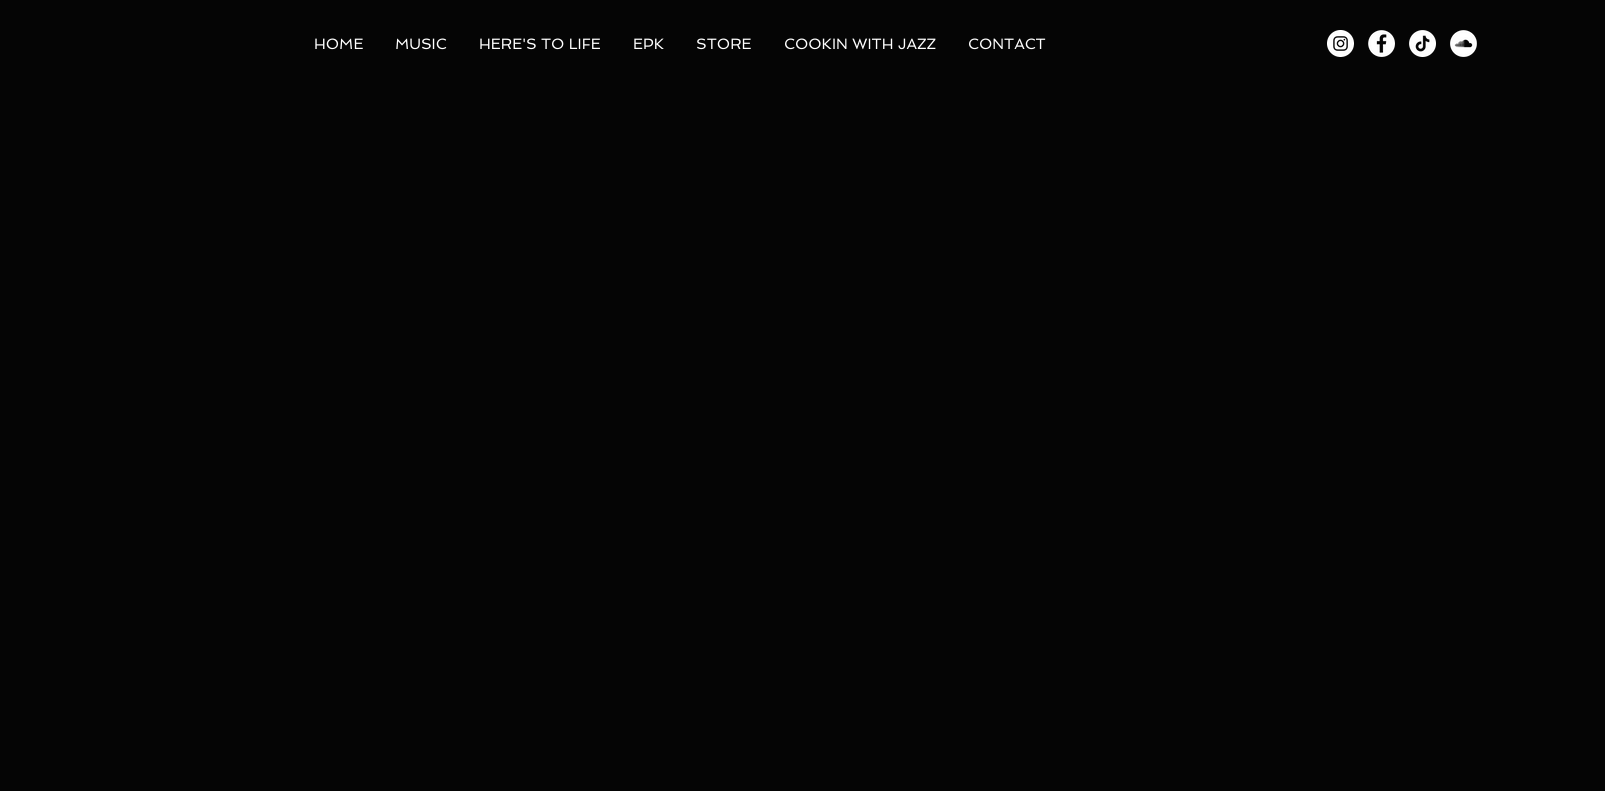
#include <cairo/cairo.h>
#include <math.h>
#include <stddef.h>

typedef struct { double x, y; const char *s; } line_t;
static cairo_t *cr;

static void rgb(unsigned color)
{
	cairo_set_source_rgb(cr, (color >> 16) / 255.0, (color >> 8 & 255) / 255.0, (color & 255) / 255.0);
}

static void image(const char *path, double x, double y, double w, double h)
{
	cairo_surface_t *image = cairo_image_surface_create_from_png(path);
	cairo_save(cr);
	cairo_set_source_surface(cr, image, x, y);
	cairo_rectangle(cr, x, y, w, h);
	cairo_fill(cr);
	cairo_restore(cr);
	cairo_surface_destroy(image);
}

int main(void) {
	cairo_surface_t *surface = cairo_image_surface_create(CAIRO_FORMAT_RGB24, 1605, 791);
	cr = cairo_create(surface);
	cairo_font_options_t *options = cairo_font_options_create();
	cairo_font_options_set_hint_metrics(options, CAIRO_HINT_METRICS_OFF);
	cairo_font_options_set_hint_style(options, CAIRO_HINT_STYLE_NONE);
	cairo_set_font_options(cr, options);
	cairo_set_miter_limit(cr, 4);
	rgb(0x050505);
	cairo_paint(cr);
	image("img/1.png", 1327, 30, 27, 27);
	image("img/2.png", 1368, 30, 27, 27);
	image("img/3.png", 1409, 30, 27, 27);
	image("img/4.png", 1450, 30, 27, 27);
	cairo_select_font_face(cr, "Spinnaker", CAIRO_FONT_SLANT_NORMAL, CAIRO_FONT_WEIGHT_NORMAL);
	cairo_set_font_size(cr, 15);
	rgb(0xffffff);
	{
		static const line_t items[] = {
			{314, 49, "HOME"},
			{395, 49, "MUSIC"},
			{479, 49, "HERE'S TO LIFE"},
			{633, 49, "EPK"},
			{696, 49, "STORE"},
			{784, 49, "COOKIN WITH JAZZ"},
			{968, 49, "CONTACT"},
		};
		for (size_t i = 0; i < sizeof items / sizeof *items; i++) {
			cairo_move_to(cr, items[i].x, items[i].y);
			cairo_show_text(cr, items[i].s);
		}
	}
	cairo_surface_write_to_png(surface, "page.png");
	cairo_font_options_destroy(options);
	cairo_destroy(cr);
	cairo_surface_destroy(surface);
	return 0;
}
